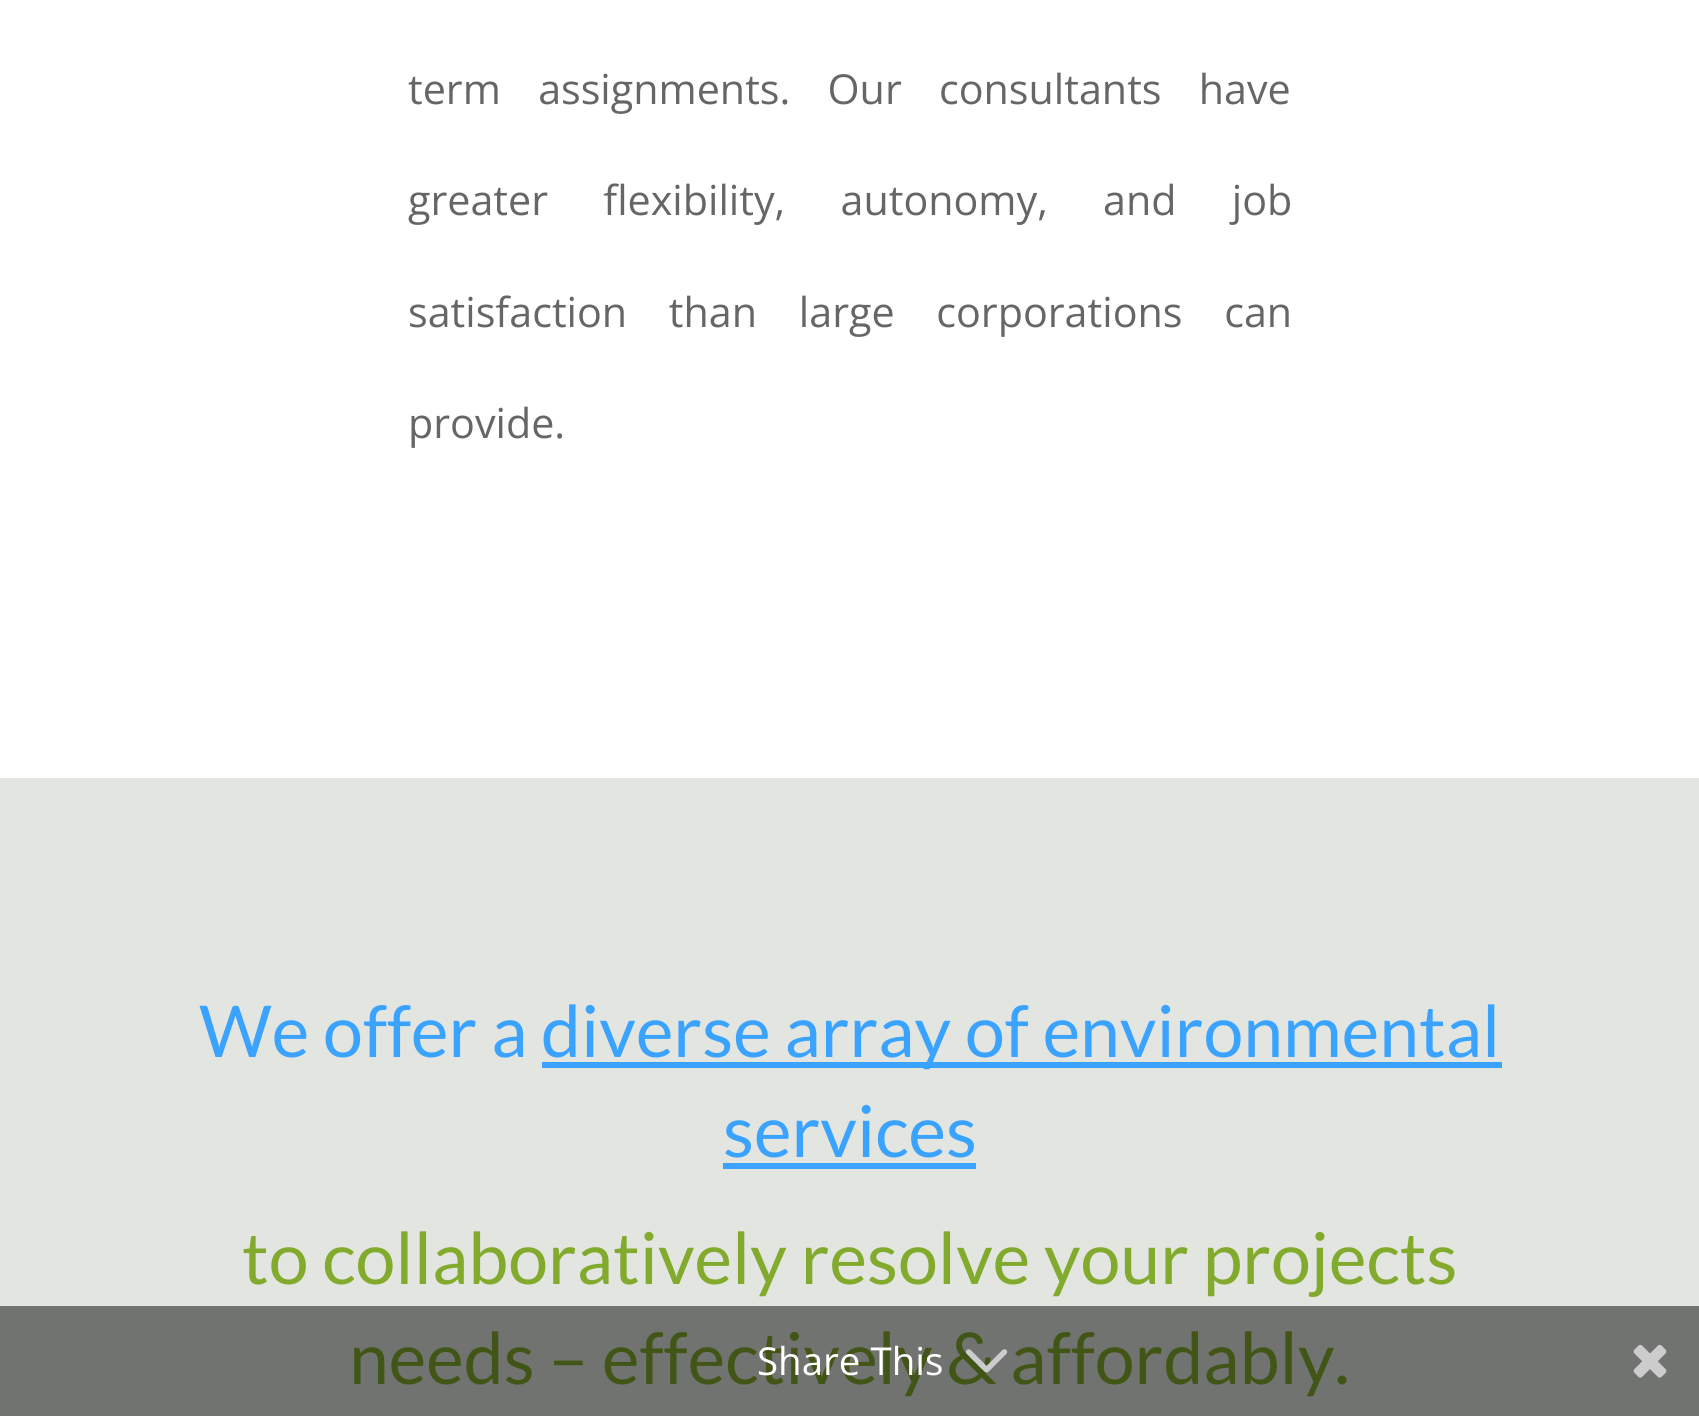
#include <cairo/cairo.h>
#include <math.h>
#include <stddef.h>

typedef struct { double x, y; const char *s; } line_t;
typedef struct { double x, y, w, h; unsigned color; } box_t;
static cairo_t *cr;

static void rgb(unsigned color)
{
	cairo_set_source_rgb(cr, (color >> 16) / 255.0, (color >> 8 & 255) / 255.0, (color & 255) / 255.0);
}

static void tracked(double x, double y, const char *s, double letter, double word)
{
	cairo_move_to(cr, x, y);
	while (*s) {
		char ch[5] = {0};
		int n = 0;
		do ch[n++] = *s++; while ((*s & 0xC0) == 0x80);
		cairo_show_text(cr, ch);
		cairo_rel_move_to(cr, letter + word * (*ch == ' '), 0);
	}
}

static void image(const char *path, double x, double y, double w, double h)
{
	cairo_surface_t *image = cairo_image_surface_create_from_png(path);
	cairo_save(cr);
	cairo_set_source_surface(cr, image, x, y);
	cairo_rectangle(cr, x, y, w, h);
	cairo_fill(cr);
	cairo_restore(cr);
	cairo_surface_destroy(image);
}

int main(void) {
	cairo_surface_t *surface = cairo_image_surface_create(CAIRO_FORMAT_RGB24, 1699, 1416);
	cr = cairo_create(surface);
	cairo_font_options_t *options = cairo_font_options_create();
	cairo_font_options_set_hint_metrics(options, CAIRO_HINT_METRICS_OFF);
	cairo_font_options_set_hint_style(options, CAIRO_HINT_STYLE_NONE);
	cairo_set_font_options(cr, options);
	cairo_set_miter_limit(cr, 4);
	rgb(0xffffff);
	cairo_paint(cr);
	{
		static const box_t items[] = {
			{0, 778, 1699, 528, 0xe2e5e0},
			{0, 1306, 1699, 110, 0x717370},
			{542, 1062, 960, 6, 0x3aa2ff},
			{723, 1163, 253, 6, 0x3aa2ff},
		};
		for (size_t i = 0; i < sizeof items / sizeof *items; i++) {
			rgb(items[i].color);
			cairo_rectangle(cr, items[i].x, items[i].y, items[i].w, items[i].h);
			cairo_fill(cr);
		}
	}
	image("img/2.png", 1633, 1344, 34, 34);
	cairo_select_font_face(cr, "Open Sans", CAIRO_FONT_SLANT_NORMAL, CAIRO_FONT_WEIGHT_NORMAL);
	cairo_set_font_size(cr, 41.25);
	rgb(0x666666);
	tracked(408, 104, "term assignments. Our consultants have", 0, 26.5);
	tracked(408, 215, "greater flexibility, autonomy, and job", 0, 44.5);
	tracked(408, 327, "satisfaction than large corporations can", 0, 31);
	cairo_move_to(cr, 408, 438);
	cairo_show_text(cr, "provide.");
	cairo_select_font_face(cr, "Lato", CAIRO_FONT_SLANT_NORMAL, CAIRO_FONT_WEIGHT_NORMAL);
	cairo_set_font_size(cr, 71.5);
	rgb(0x3aa2ff);
	{
		static const line_t items[] = {
			{199, 1057, "We offer a"},
			{541, 1057, "diverse array of environmental"},
			{723, 1157, "services"},
		};
		for (size_t i = 0; i < sizeof items / sizeof *items; i++) {
			cairo_move_to(cr, items[i].x, items[i].y);
			cairo_show_text(cr, items[i].s);
		}
	}
	rgb(0x82aa2c);
	cairo_move_to(cr, 242, 1284);
	cairo_show_text(cr, "to collaboratively resolve your projects");
	rgb(0x415516);
	cairo_move_to(cr, 349, 1384);
	cairo_show_text(cr, "needs – effectively & affordably.");
	cairo_select_font_face(cr, "Open Sans", CAIRO_FONT_SLANT_NORMAL, CAIRO_FONT_WEIGHT_NORMAL);
	cairo_set_font_size(cr, 38.5);
	rgb(0xffffff);
	cairo_move_to(cr, 757, 1375);
	cairo_show_text(cr, "Share This");
	image("img/1.png", 966, 1349, 42, 24);
	cairo_surface_write_to_png(surface, "page.png");
	cairo_font_options_destroy(options);
	cairo_destroy(cr);
	cairo_surface_destroy(surface);
	return 0;
}
